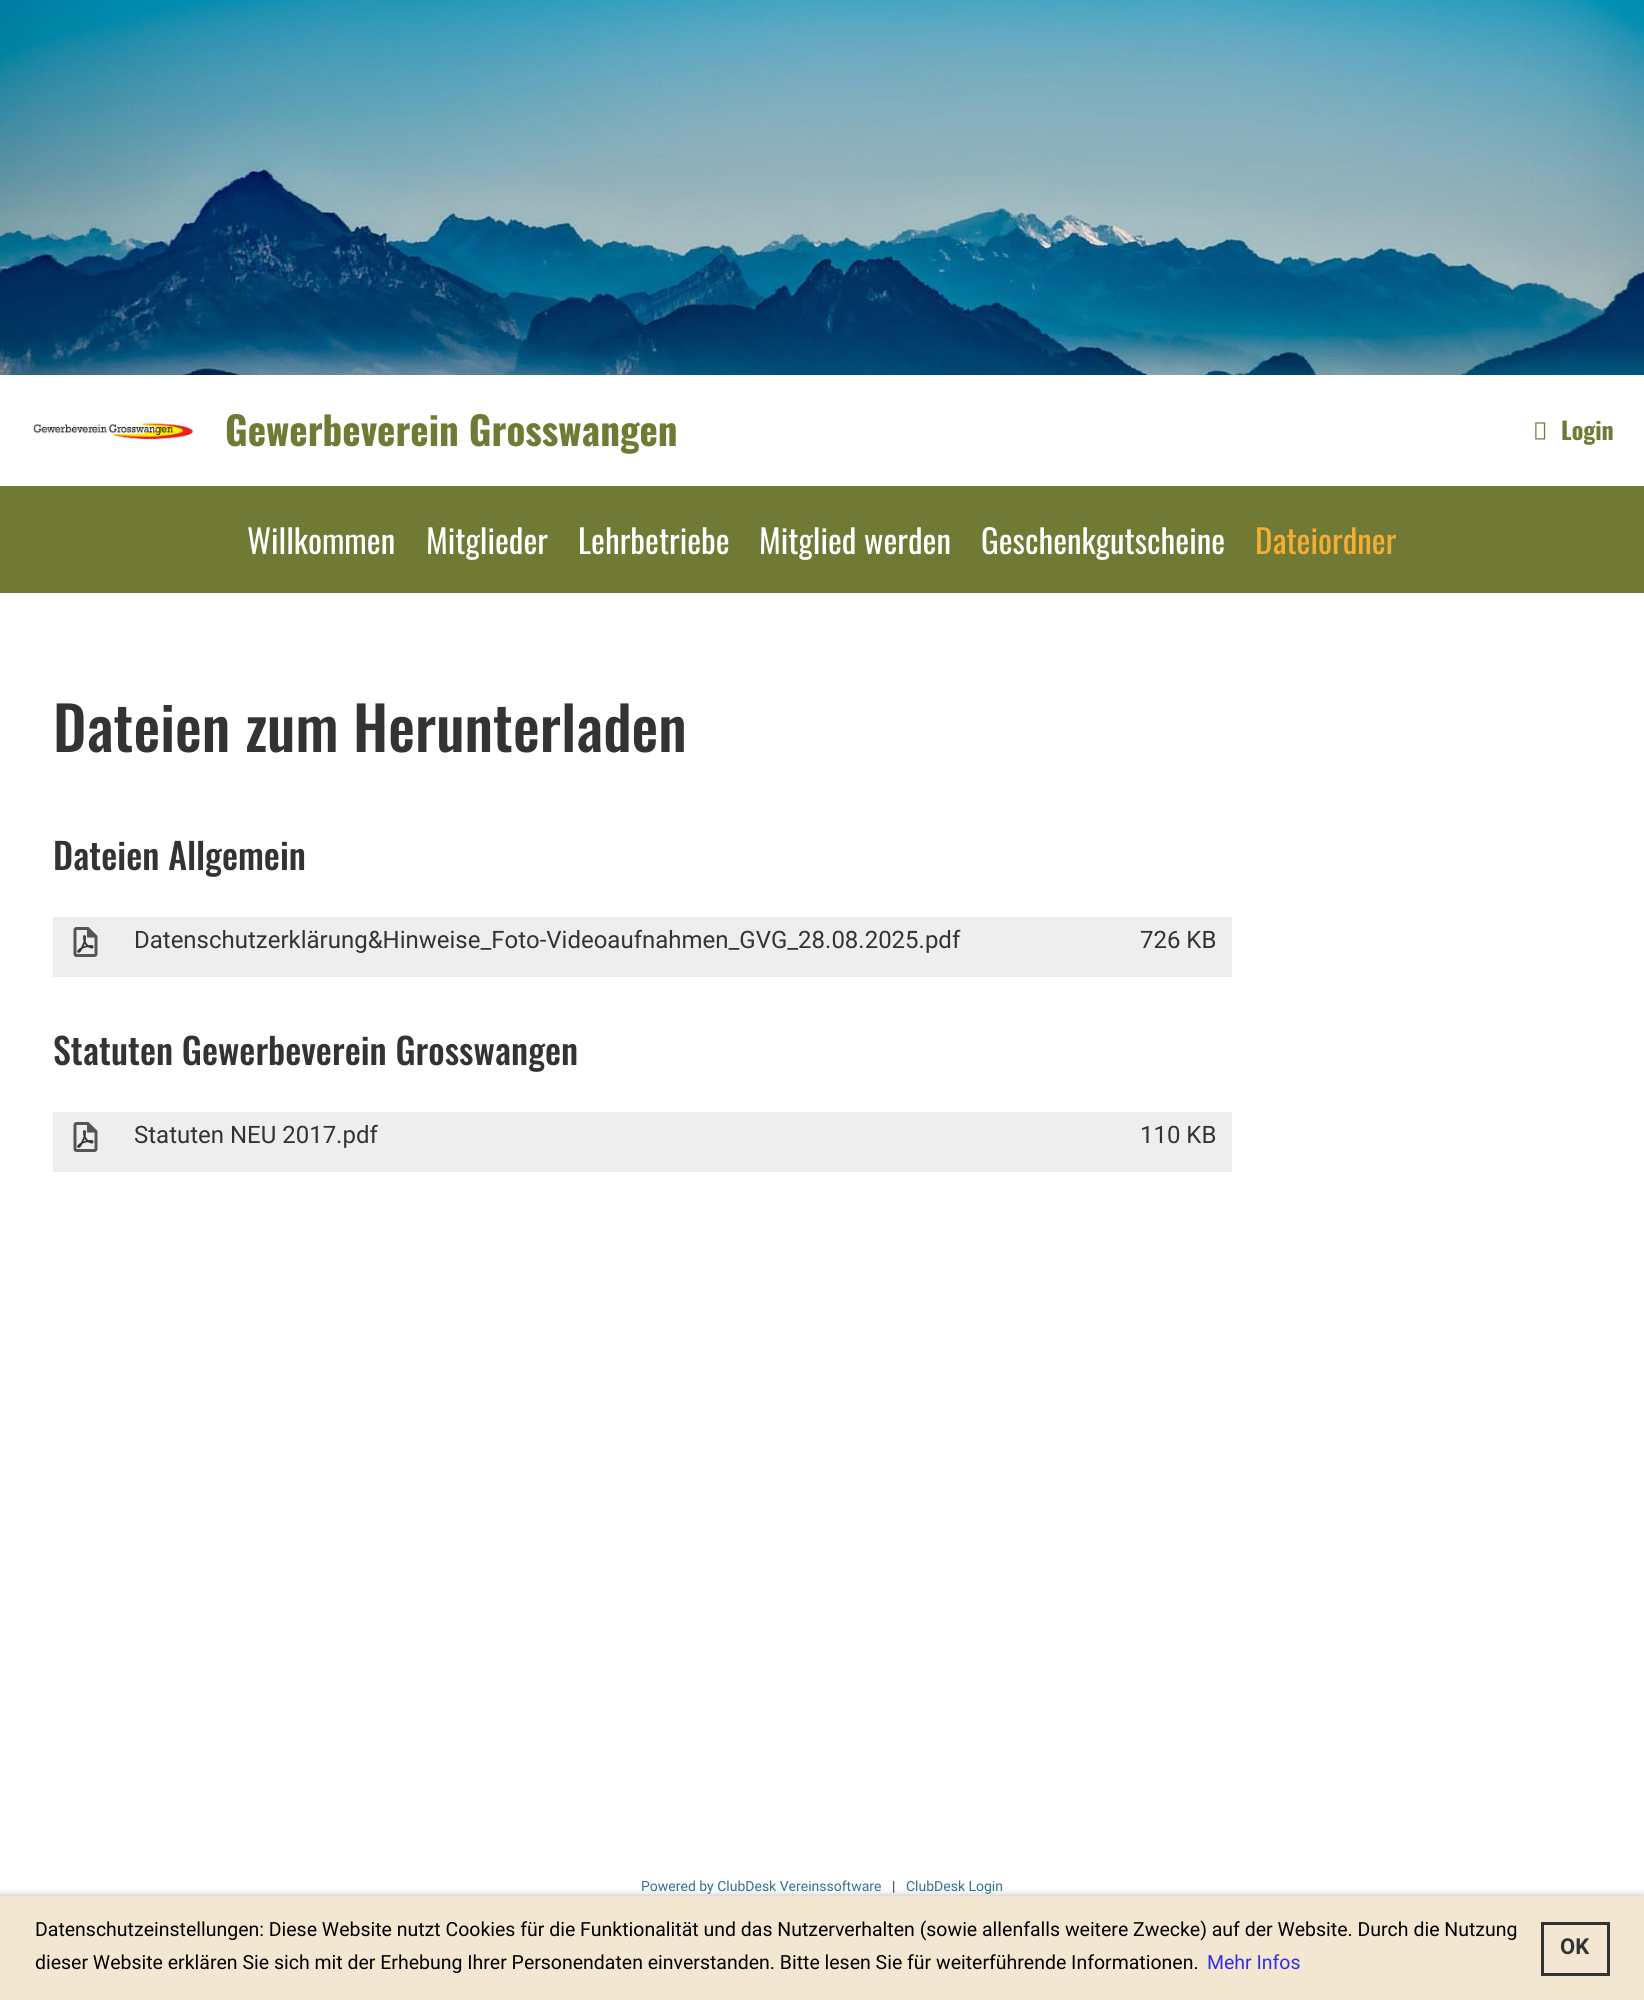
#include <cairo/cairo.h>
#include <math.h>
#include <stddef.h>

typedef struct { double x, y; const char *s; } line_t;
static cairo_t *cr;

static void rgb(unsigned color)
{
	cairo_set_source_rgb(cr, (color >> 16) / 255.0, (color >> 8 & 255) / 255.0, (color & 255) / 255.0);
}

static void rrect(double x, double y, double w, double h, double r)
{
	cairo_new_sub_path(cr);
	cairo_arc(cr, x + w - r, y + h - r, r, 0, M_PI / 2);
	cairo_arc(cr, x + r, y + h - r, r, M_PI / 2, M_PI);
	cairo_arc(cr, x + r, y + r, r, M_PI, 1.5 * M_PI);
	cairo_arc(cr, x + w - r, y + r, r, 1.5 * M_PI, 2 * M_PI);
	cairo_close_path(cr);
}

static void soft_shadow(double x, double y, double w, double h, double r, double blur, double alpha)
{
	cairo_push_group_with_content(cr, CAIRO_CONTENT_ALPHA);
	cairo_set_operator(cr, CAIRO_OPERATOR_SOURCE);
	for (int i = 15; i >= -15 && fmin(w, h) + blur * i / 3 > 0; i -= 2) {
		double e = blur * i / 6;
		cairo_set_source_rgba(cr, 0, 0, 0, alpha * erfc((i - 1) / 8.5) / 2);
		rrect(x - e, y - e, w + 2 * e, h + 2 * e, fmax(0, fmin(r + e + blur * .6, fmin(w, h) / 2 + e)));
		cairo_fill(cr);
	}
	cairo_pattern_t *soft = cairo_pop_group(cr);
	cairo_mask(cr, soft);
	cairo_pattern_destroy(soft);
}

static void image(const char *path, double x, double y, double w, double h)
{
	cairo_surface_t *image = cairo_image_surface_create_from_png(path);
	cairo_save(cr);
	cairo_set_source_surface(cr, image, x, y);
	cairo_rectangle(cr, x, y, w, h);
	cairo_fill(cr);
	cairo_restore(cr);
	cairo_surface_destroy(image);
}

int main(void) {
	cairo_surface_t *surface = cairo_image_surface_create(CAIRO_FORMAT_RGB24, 1644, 2000);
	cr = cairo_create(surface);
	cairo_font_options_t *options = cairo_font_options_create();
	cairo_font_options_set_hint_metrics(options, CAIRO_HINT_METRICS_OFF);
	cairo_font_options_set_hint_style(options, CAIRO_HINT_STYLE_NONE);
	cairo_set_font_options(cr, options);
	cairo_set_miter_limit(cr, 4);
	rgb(0xffffff);
	cairo_paint(cr);
	image("img/1.png", 0, 0, 1644, 375);
	image("img/2.png", 33, 423, 161, 17);
	image("img/3.png", 1535, 422, 11, 18);
	rgb(0x707a35);
	cairo_rectangle(cr, 0, 486, 1644, 107);
	cairo_fill(cr);
	rgb(0xeeeeee);
	cairo_rectangle(cr, 53, 917, 1179, 60);
	cairo_fill(cr);
	image("img/4.png", 73, 927, 25, 30);
	cairo_rectangle(cr, 53, 1112, 1179, 60);
	cairo_fill(cr);
	image("img/4.png", 73, 1122, 25, 30);
	rgb(0x000000);
	soft_shadow(0, 1896, 1644, 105, 0, 4, 0.3);
	rgb(0xf4e7d2);
	cairo_rectangle(cr, 0, 1896, 1644, 104);
	cairo_fill(cr);
	cairo_rectangle(cr, 1542.5, 1923.5, 66, 51);
	rgb(0x333333);
	cairo_set_line_width(cr, 3);
	cairo_stroke(cr);
	cairo_select_font_face(cr, "Oswald", CAIRO_FONT_SLANT_NORMAL, CAIRO_FONT_WEIGHT_BOLD);
	cairo_set_font_size(cr, 39);
	rgb(0x707a35);
	cairo_move_to(cr, 225, 446);
	cairo_show_text(cr, "Gewerbeverein Grosswangen");
	cairo_set_font_size(cr, 24);
	cairo_move_to(cr, 1561, 440);
	cairo_show_text(cr, "Login");
	cairo_select_font_face(cr, "Oswald", CAIRO_FONT_SLANT_NORMAL, CAIRO_FONT_WEIGHT_NORMAL);
	cairo_set_font_size(cr, 33);
	rgb(0xffffff);
	{
		static const line_t items[] = {
			{247, 554, "Willkommen"},
			{426, 554, "Mitglieder"},
			{578, 554, "Lehrbetriebe"},
			{759, 554, "Mitglied werden"},
			{981, 554, "Geschenkgutscheine"},
		};
		for (size_t i = 0; i < sizeof items / sizeof *items; i++) {
			cairo_move_to(cr, items[i].x, items[i].y);
			cairo_show_text(cr, items[i].s);
		}
	}
	rgb(0xf4ae35);
	cairo_move_to(cr, 1255, 554);
	cairo_show_text(cr, "Dateiordner");
	cairo_select_font_face(cr, "Oswald Medium", CAIRO_FONT_SLANT_NORMAL, CAIRO_FONT_WEIGHT_NORMAL);
	cairo_set_font_size(cr, 60);
	rgb(0x333333);
	cairo_move_to(cr, 53, 752);
	cairo_show_text(cr, "Dateien zum Herunterladen");
	cairo_set_font_size(cr, 36);
	cairo_move_to(cr, 53, 870);
	cairo_show_text(cr, "Dateien Allgemein");
	cairo_select_font_face(cr, "Roboto", CAIRO_FONT_SLANT_NORMAL, CAIRO_FONT_WEIGHT_NORMAL);
	cairo_set_font_size(cr, 24);
	cairo_move_to(cr, 134, 948);
	cairo_show_text(cr, "Datenschutzerklärung&Hinweise_Foto-Videoaufnahmen_GVG_28.08.2025.pdf");
	cairo_move_to(cr, 1140, 948);
	cairo_show_text(cr, "726 KB");
	cairo_select_font_face(cr, "Oswald Medium", CAIRO_FONT_SLANT_NORMAL, CAIRO_FONT_WEIGHT_NORMAL);
	cairo_set_font_size(cr, 36);
	cairo_move_to(cr, 53, 1065);
	cairo_show_text(cr, "Statuten Gewerbeverein Grosswangen");
	cairo_select_font_face(cr, "Roboto", CAIRO_FONT_SLANT_NORMAL, CAIRO_FONT_WEIGHT_NORMAL);
	cairo_set_font_size(cr, 24);
	cairo_move_to(cr, 134, 1143);
	cairo_show_text(cr, "Statuten NEU 2017.pdf");
	cairo_move_to(cr, 1140, 1143);
	cairo_show_text(cr, "110 KB");
	cairo_set_font_size(cr, 14);
	rgb(0x33708c);
	cairo_move_to(cr, 641, 1891);
	cairo_show_text(cr, "Powered by ClubDesk Vereinssoftware");
	rgb(0x333333);
	cairo_move_to(cr, 892, 1891);
	cairo_show_text(cr, "|");
	rgb(0x33708c);
	cairo_move_to(cr, 906, 1891);
	cairo_show_text(cr, "ClubDesk Login");
	cairo_set_font_size(cr, 19.5);
	rgb(0x000000);
	cairo_move_to(cr, 35, 1936);
	cairo_show_text(cr, "Datenschutzeinstellungen: Diese Website nutzt Cookies für die Funktionalität und das Nutzerverhalten (sowie allenfalls weitere Zwecke) auf der Website. Durch die Nutzung");
	cairo_move_to(cr, 35, 1969);
	cairo_show_text(cr, "dieser Website erklären Sie sich mit der Erhebung Ihrer Personendaten einverstanden. Bitte lesen Sie für weiterführende Informationen.");
	rgb(0x312ee8);
	cairo_move_to(cr, 1207, 1969);
	cairo_show_text(cr, "Mehr Infos");
	cairo_select_font_face(cr, "Roboto", CAIRO_FONT_SLANT_NORMAL, CAIRO_FONT_WEIGHT_BOLD);
	cairo_set_font_size(cr, 22);
	rgb(0x333333);
	cairo_move_to(cr, 1560, 1954);
	cairo_show_text(cr, "OK");
	cairo_surface_write_to_png(surface, "page.png");
	cairo_font_options_destroy(options);
	cairo_destroy(cr);
	cairo_surface_destroy(surface);
	return 0;
}
